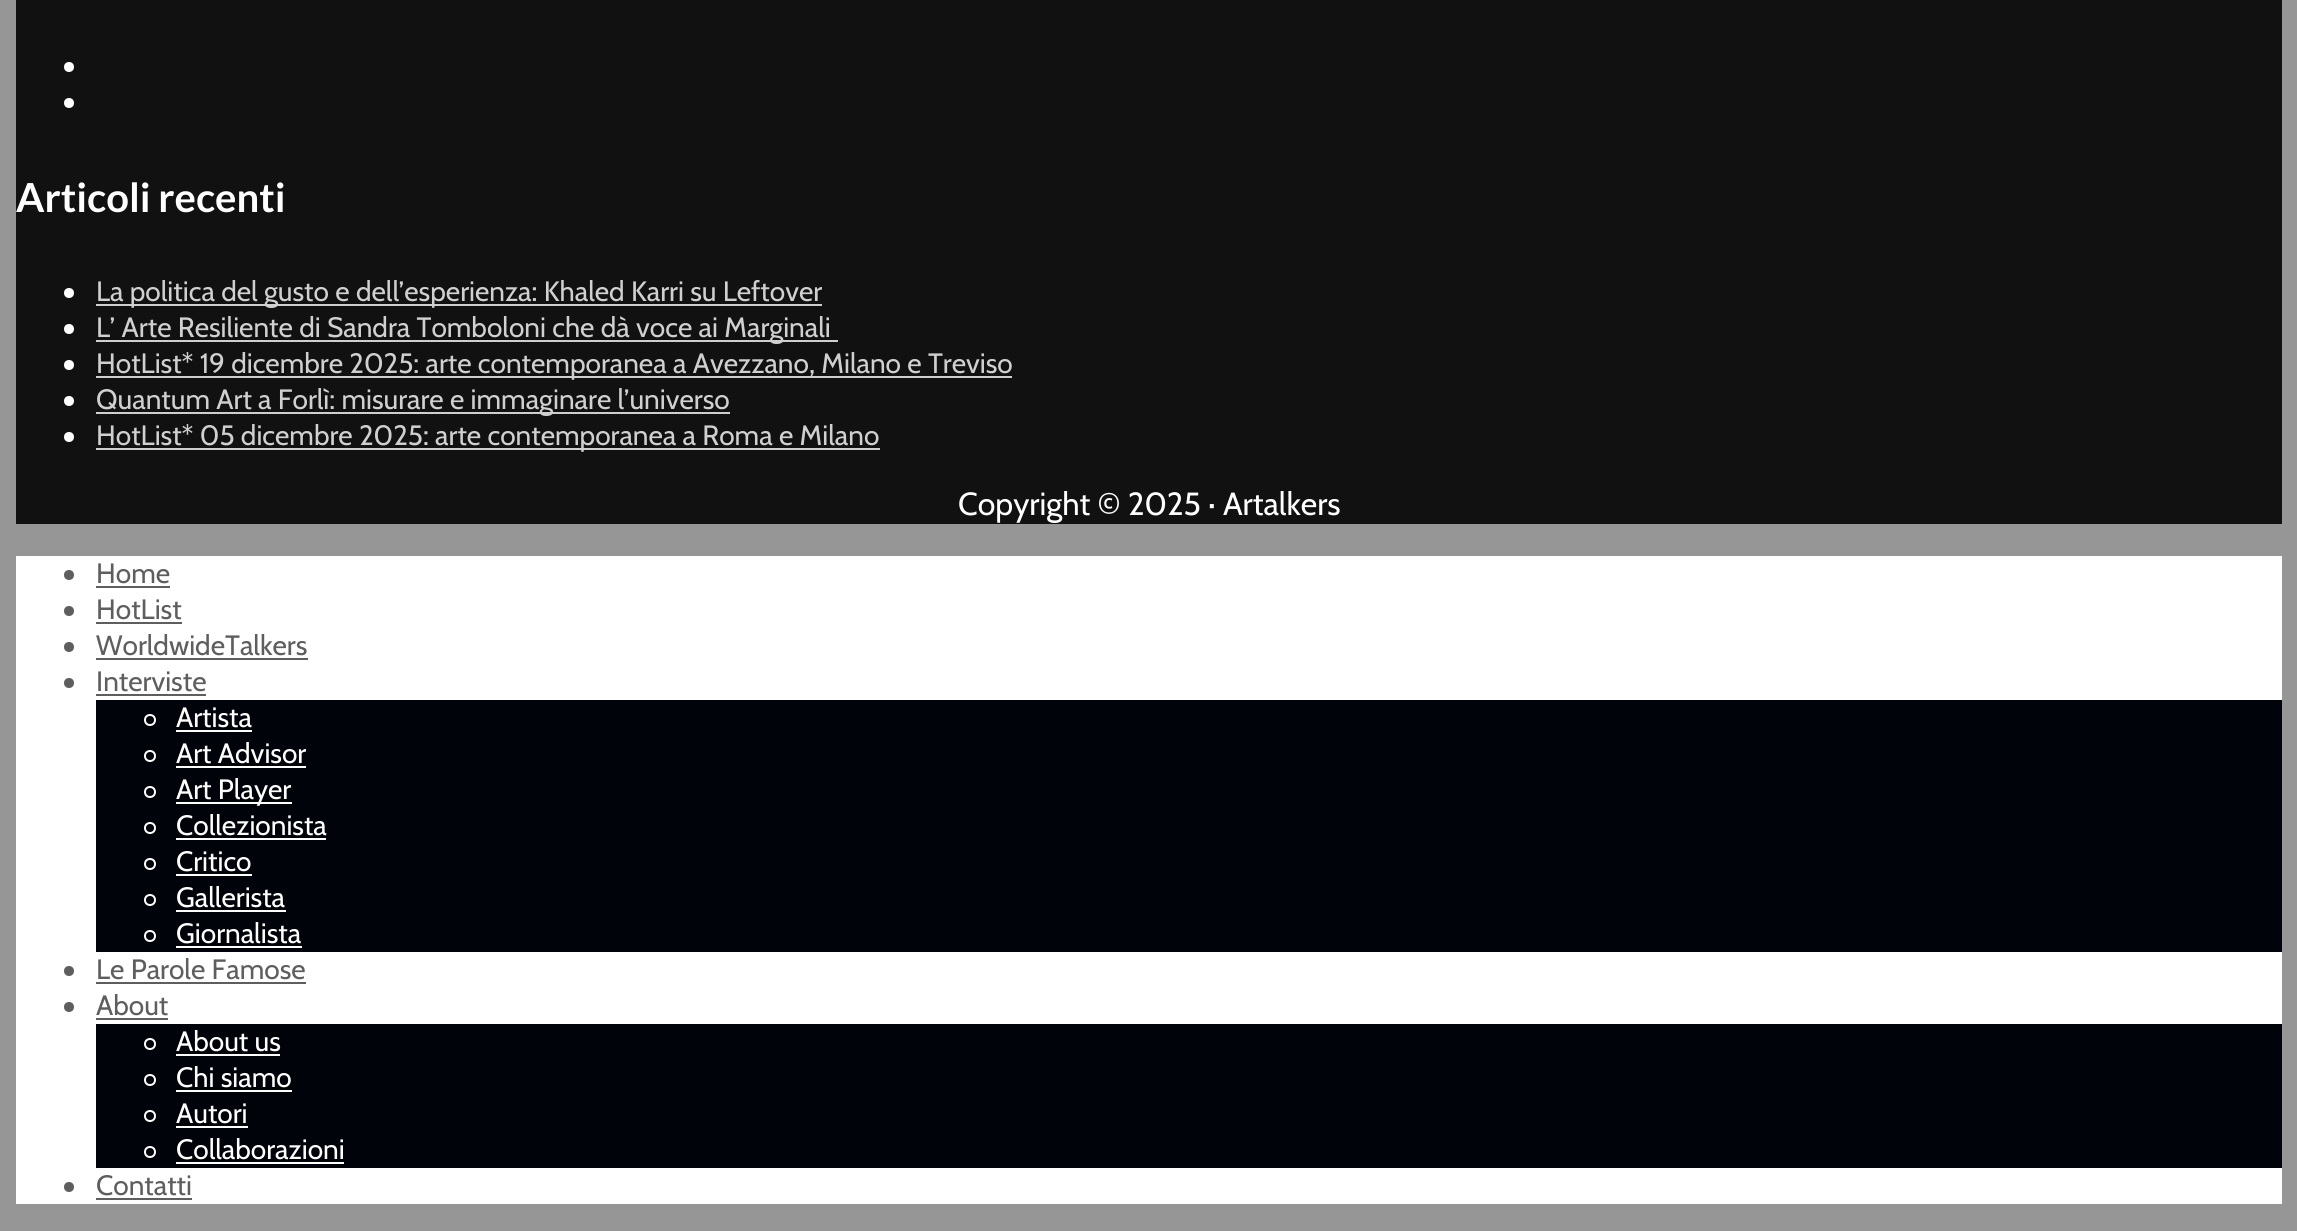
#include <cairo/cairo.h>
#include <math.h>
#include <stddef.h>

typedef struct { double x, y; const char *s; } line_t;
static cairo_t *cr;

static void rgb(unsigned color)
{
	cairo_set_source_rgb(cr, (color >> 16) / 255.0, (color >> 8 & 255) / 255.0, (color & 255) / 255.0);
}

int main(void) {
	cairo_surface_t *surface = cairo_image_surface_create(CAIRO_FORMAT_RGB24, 2297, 1231);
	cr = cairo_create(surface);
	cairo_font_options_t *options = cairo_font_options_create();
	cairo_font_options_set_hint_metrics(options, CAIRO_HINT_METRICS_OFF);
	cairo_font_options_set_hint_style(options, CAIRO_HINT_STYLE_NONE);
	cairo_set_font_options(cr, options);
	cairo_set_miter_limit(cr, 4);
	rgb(0x969696);
	cairo_paint(cr);
	rgb(0x111111);
	cairo_rectangle(cr, 16, 0, 2266, 524);
	cairo_fill(cr);
	rgb(0xffffff);
	cairo_arc(cr, 69, 67, 5, 0, 2 * M_PI);
	cairo_fill(cr);
	cairo_arc(cr, 69, 103, 5, 0, 2 * M_PI);
	cairo_fill(cr);
	cairo_arc(cr, 69, 293, 5, 0, 2 * M_PI);
	cairo_fill(cr);
	rgb(0xcfcfcf);
	cairo_rectangle(cr, 96, 304, 726, 2);
	cairo_fill(cr);
	rgb(0xffffff);
	cairo_arc(cr, 69, 329, 5, 0, 2 * M_PI);
	cairo_fill(cr);
	rgb(0xcfcfcf);
	cairo_rectangle(cr, 96, 340, 742, 2);
	cairo_fill(cr);
	rgb(0xffffff);
	cairo_arc(cr, 69, 365, 5, 0, 2 * M_PI);
	cairo_fill(cr);
	rgb(0xcfcfcf);
	cairo_rectangle(cr, 96, 376, 916, 2);
	cairo_fill(cr);
	rgb(0xffffff);
	cairo_arc(cr, 69, 401, 5, 0, 2 * M_PI);
	cairo_fill(cr);
	rgb(0xcfcfcf);
	cairo_rectangle(cr, 96, 412, 634, 2);
	cairo_fill(cr);
	rgb(0xffffff);
	cairo_arc(cr, 69, 437, 5, 0, 2 * M_PI);
	cairo_fill(cr);
	rgb(0xcfcfcf);
	cairo_rectangle(cr, 96, 448, 784, 2);
	cairo_fill(cr);
	rgb(0xffffff);
	cairo_rectangle(cr, 16, 556, 2266, 648);
	cairo_fill(cr);
	rgb(0x5e5e5e);
	cairo_arc(cr, 69, 575, 5, 0, 2 * M_PI);
	cairo_fill(cr);
	cairo_rectangle(cr, 96, 586, 74, 2);
	cairo_fill(cr);
	cairo_arc(cr, 69, 611, 5, 0, 2 * M_PI);
	cairo_fill(cr);
	cairo_rectangle(cr, 96, 622, 86, 2);
	cairo_fill(cr);
	cairo_arc(cr, 69, 647, 5, 0, 2 * M_PI);
	cairo_fill(cr);
	cairo_rectangle(cr, 96, 658, 212, 2);
	cairo_fill(cr);
	cairo_arc(cr, 69, 683, 5, 0, 2 * M_PI);
	cairo_fill(cr);
	cairo_rectangle(cr, 96, 694, 110, 2);
	cairo_fill(cr);
	rgb(0x00040a);
	cairo_rectangle(cr, 96, 700, 2186, 252);
	cairo_fill(cr);
	cairo_arc(cr, 150, 720, 5, 0, 2 * M_PI);
	rgb(0xffffff);
	cairo_stroke(cr);
	cairo_rectangle(cr, 176, 730, 76, 2);
	cairo_fill(cr);
	cairo_arc(cr, 150, 756, 5, 0, 2 * M_PI);
	cairo_stroke(cr);
	cairo_rectangle(cr, 176, 766, 130, 2);
	cairo_fill(cr);
	cairo_arc(cr, 150, 792, 5, 0, 2 * M_PI);
	cairo_stroke(cr);
	cairo_rectangle(cr, 176, 802, 116, 2);
	cairo_fill(cr);
	cairo_arc(cr, 150, 828, 5, 0, 2 * M_PI);
	cairo_stroke(cr);
	cairo_rectangle(cr, 176, 838, 150, 2);
	cairo_fill(cr);
	cairo_arc(cr, 150, 864, 5, 0, 2 * M_PI);
	cairo_stroke(cr);
	cairo_rectangle(cr, 176, 874, 76, 2);
	cairo_fill(cr);
	cairo_arc(cr, 150, 900, 5, 0, 2 * M_PI);
	cairo_stroke(cr);
	cairo_rectangle(cr, 176, 910, 110, 2);
	cairo_fill(cr);
	cairo_arc(cr, 150, 936, 5, 0, 2 * M_PI);
	cairo_stroke(cr);
	cairo_rectangle(cr, 176, 946, 126, 2);
	cairo_fill(cr);
	rgb(0x5e5e5e);
	cairo_arc(cr, 69, 971, 5, 0, 2 * M_PI);
	cairo_fill(cr);
	cairo_rectangle(cr, 96, 982, 210, 2);
	cairo_fill(cr);
	cairo_arc(cr, 69, 1007, 5, 0, 2 * M_PI);
	cairo_fill(cr);
	cairo_rectangle(cr, 96, 1018, 72, 2);
	cairo_fill(cr);
	rgb(0x00040a);
	cairo_rectangle(cr, 96, 1024, 2186, 144);
	cairo_fill(cr);
	cairo_arc(cr, 150, 1044, 5, 0, 2 * M_PI);
	rgb(0xffffff);
	cairo_stroke(cr);
	cairo_rectangle(cr, 176, 1054, 104, 2);
	cairo_fill(cr);
	cairo_arc(cr, 150, 1080, 5, 0, 2 * M_PI);
	cairo_stroke(cr);
	cairo_rectangle(cr, 176, 1090, 116, 2);
	cairo_fill(cr);
	cairo_arc(cr, 150, 1116, 5, 0, 2 * M_PI);
	cairo_stroke(cr);
	cairo_rectangle(cr, 176, 1126, 72, 2);
	cairo_fill(cr);
	cairo_arc(cr, 150, 1152, 5, 0, 2 * M_PI);
	cairo_stroke(cr);
	cairo_rectangle(cr, 176, 1162, 168, 2);
	cairo_fill(cr);
	rgb(0x5e5e5e);
	cairo_arc(cr, 69, 1187, 5, 0, 2 * M_PI);
	cairo_fill(cr);
	cairo_rectangle(cr, 96, 1198, 96, 2);
	cairo_fill(cr);
	cairo_select_font_face(cr, "Lato", CAIRO_FONT_SLANT_NORMAL, CAIRO_FONT_WEIGHT_BOLD);
	cairo_set_font_size(cr, 40);
	rgb(0xffffff);
	cairo_move_to(cr, 16, 212);
	cairo_show_text(cr, "Articoli recenti");
	cairo_select_font_face(cr, "Cabin", CAIRO_FONT_SLANT_NORMAL, CAIRO_FONT_WEIGHT_NORMAL);
	cairo_set_font_size(cr, 28);
	rgb(0xd0d0d0);
	{
		static const line_t items[] = {
			{96, 301, "La politica del gusto e dell’esperienza: Khaled Karri su Leftover"},
			{96, 337, "L’ Arte Resiliente di Sandra Tomboloni che dà voce ai Marginali"},
			{96, 373, "HotList* 19 dicembre 2025: arte contemporanea a Avezzano, Milano e Treviso"},
			{96, 409, "Quantum Art a Forlì: misurare e immaginare l’universo"},
			{96, 445, "HotList* 05 dicembre 2025: arte contemporanea a Roma e Milano"},
		};
		for (size_t i = 0; i < sizeof items / sizeof *items; i++) {
			cairo_move_to(cr, items[i].x, items[i].y);
			cairo_show_text(cr, items[i].s);
		}
	}
	cairo_set_font_size(cr, 32);
	rgb(0xffffff);
	cairo_move_to(cr, 958, 515);
	cairo_show_text(cr, "Copyright © 2025 · Artalkers");
	cairo_set_font_size(cr, 28);
	rgb(0x5e5e5e);
	{
		static const line_t items[] = {
			{96, 583, "Home"},
			{96, 619, "HotList"},
			{96, 655, "WorldwideTalkers"},
			{96, 691, "Interviste"},
		};
		for (size_t i = 0; i < sizeof items / sizeof *items; i++) {
			cairo_move_to(cr, items[i].x, items[i].y);
			cairo_show_text(cr, items[i].s);
		}
	}
	rgb(0xffffff);
	{
		static const line_t items[] = {
			{176, 727, "Artista"},
			{176, 763, "Art Advisor"},
			{176, 799, "Art Player"},
			{176, 835, "Collezionista"},
			{176, 871, "Critico"},
			{176, 907, "Gallerista"},
			{176, 943, "Giornalista"},
		};
		for (size_t i = 0; i < sizeof items / sizeof *items; i++) {
			cairo_move_to(cr, items[i].x, items[i].y);
			cairo_show_text(cr, items[i].s);
		}
	}
	rgb(0x5e5e5e);
	cairo_move_to(cr, 96, 979);
	cairo_show_text(cr, "Le Parole Famose");
	cairo_move_to(cr, 96, 1015);
	cairo_show_text(cr, "About");
	rgb(0xffffff);
	{
		static const line_t items[] = {
			{176, 1051, "About us"},
			{176, 1087, "Chi siamo"},
			{176, 1123, "Autori"},
			{176, 1159, "Collaborazioni"},
		};
		for (size_t i = 0; i < sizeof items / sizeof *items; i++) {
			cairo_move_to(cr, items[i].x, items[i].y);
			cairo_show_text(cr, items[i].s);
		}
	}
	rgb(0x5e5e5e);
	cairo_move_to(cr, 96, 1195);
	cairo_show_text(cr, "Contatti");
	cairo_surface_write_to_png(surface, "page.png");
	cairo_font_options_destroy(options);
	cairo_destroy(cr);
	cairo_surface_destroy(surface);
	return 0;
}
